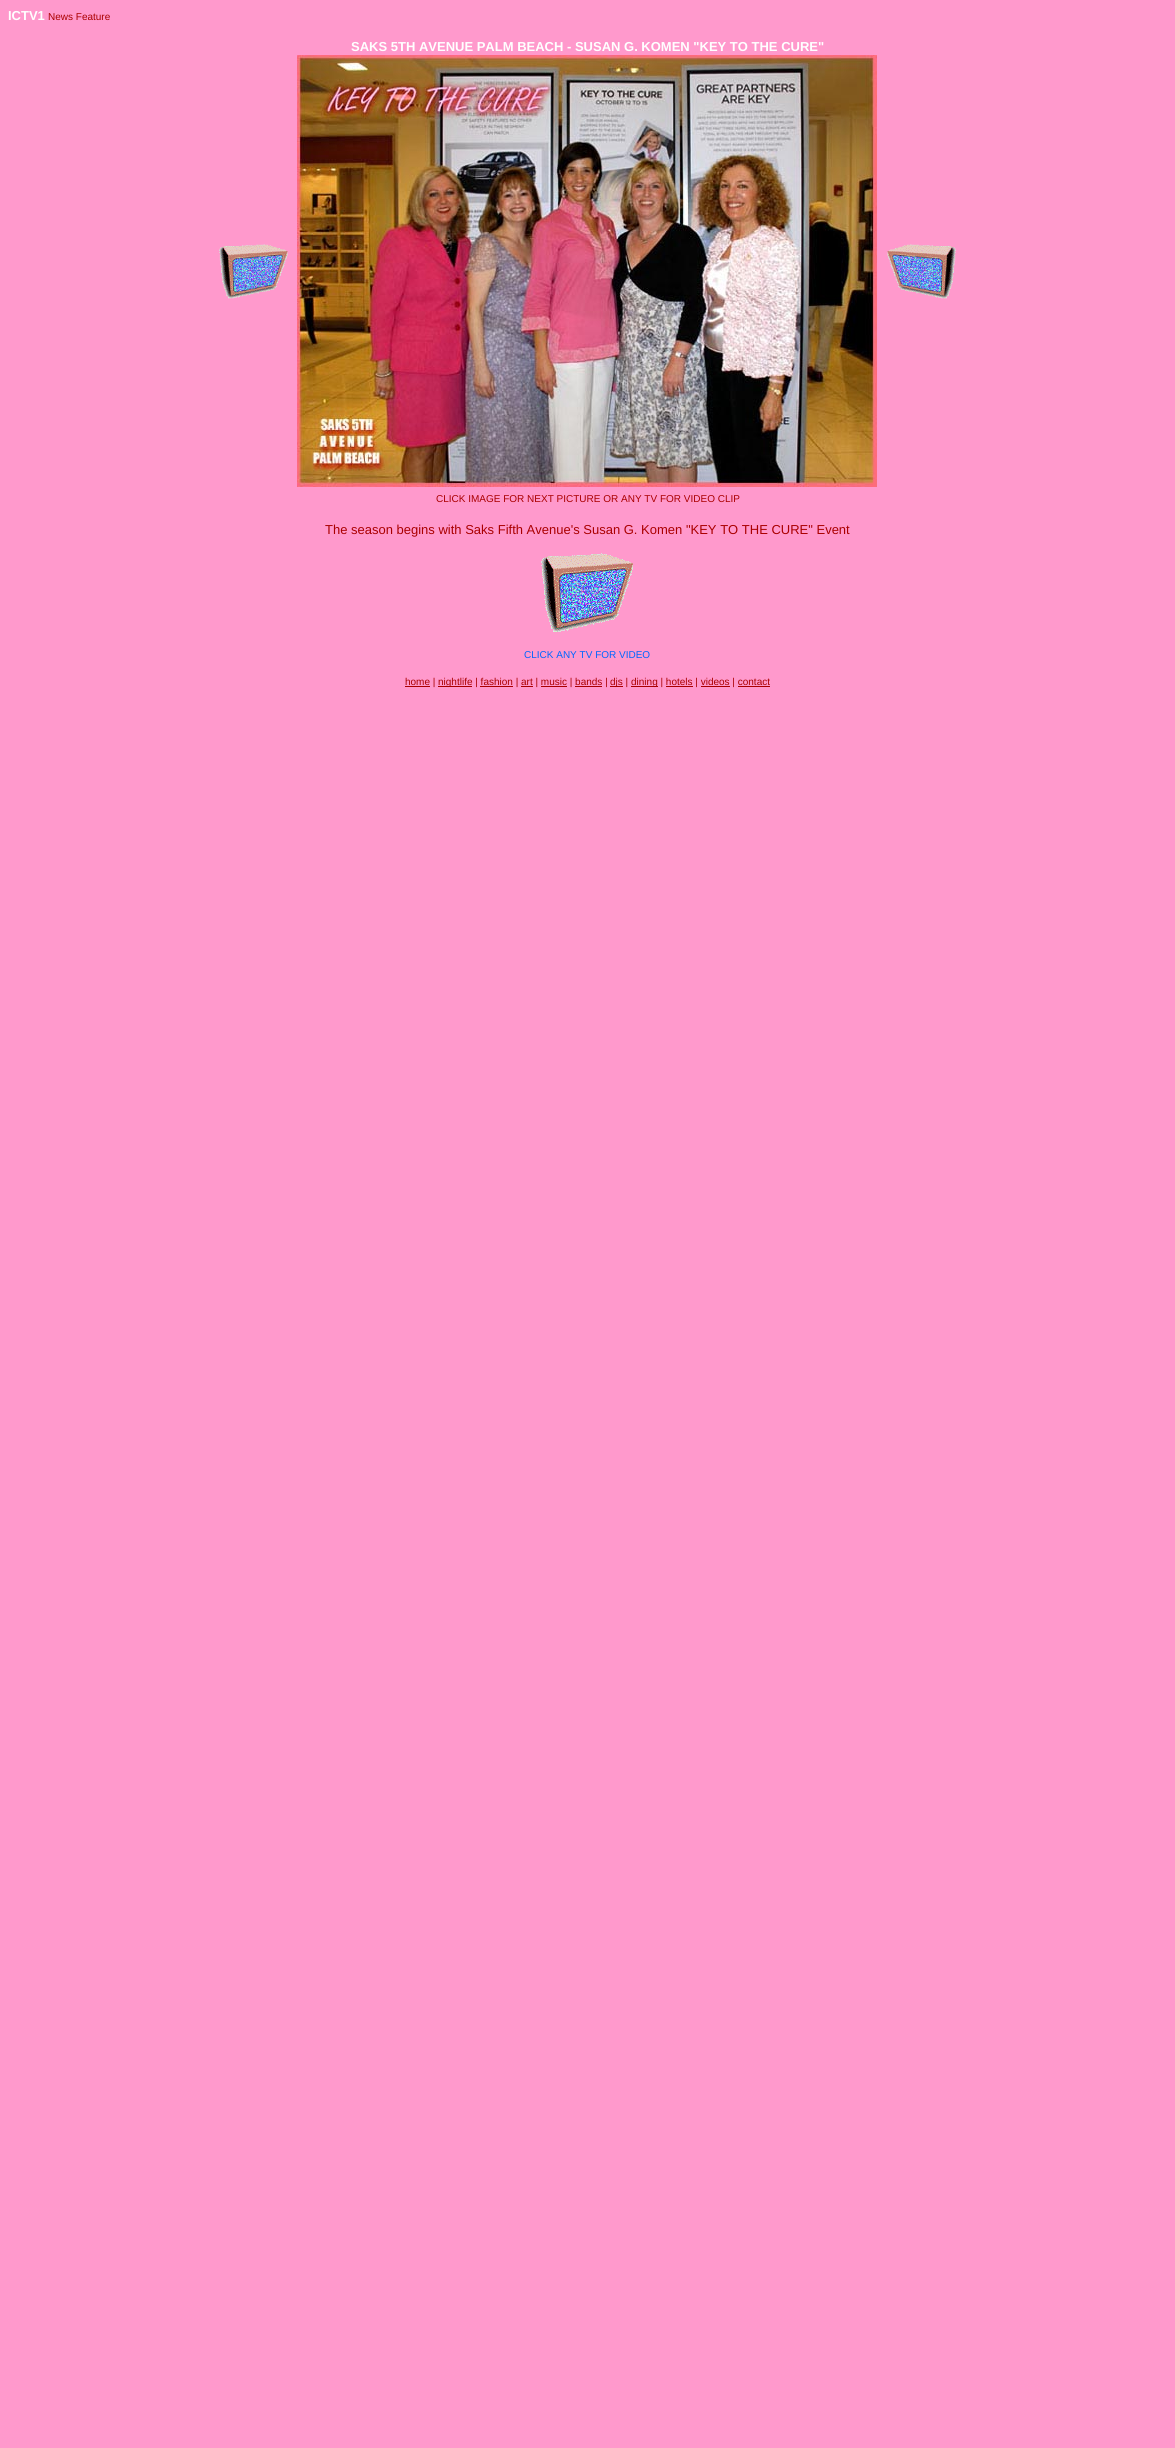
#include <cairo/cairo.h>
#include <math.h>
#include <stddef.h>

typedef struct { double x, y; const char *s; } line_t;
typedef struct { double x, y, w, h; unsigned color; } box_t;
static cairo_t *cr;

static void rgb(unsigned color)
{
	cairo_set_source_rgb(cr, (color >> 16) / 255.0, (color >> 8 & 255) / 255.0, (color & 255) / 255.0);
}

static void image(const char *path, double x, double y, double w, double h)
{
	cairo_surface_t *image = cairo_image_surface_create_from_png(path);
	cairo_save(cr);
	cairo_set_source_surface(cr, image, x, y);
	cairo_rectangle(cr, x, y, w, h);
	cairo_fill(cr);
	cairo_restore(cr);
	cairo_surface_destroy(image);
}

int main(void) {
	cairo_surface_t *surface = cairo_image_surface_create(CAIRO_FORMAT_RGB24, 1175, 2448);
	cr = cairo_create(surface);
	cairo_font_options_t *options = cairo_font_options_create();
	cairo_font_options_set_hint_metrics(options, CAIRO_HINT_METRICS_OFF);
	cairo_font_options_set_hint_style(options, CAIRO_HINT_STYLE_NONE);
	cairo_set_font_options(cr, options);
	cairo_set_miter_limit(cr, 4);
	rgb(0xff99cc);
	cairo_paint(cr);
	image("img/1.png", 219, 244, 69, 55);
	image("img/2.png", 297, 55, 580, 432);
	image("img/3.png", 887, 244, 69, 55);
	image("img/4.png", 541, 553, 92, 79);
	{
		static const box_t items[] = {
			{405, 686, 25, 1, 0xaa0000},
			{438, 686, 34, 1, 0xaa0000},
			{480, 686, 33, 1, 0xaa0000},
			{521, 686, 12, 1, 0xaa0000},
			{541, 686, 26, 1, 0xaa0000},
			{575, 686, 27, 1, 0xaa0000},
			{610, 686, 13, 1, 0xaa0000},
			{631, 686, 27, 1, 0xaa0000},
			{666, 686, 27, 1, 0xaa0000},
			{701, 686, 29, 1, 0xaa0000},
			{738, 686, 32, 1, 0xaa0000},
		};
		for (size_t i = 0; i < sizeof items / sizeof *items; i++) {
			rgb(items[i].color);
			cairo_rectangle(cr, items[i].x, items[i].y, items[i].w, items[i].h);
			cairo_fill(cr);
		}
	}
	cairo_select_font_face(cr, "Liberation Sans", CAIRO_FONT_SLANT_NORMAL, CAIRO_FONT_WEIGHT_BOLD);
	cairo_set_font_size(cr, 13);
	rgb(0xffffff);
	cairo_move_to(cr, 8, 20);
	cairo_show_text(cr, "ICTV1");
	cairo_select_font_face(cr, "Liberation Sans", CAIRO_FONT_SLANT_NORMAL, CAIRO_FONT_WEIGHT_NORMAL);
	cairo_set_font_size(cr, 10);
	rgb(0xaa0000);
	cairo_move_to(cr, 48, 20);
	cairo_show_text(cr, "News Feature");
	cairo_select_font_face(cr, "Liberation Sans", CAIRO_FONT_SLANT_NORMAL, CAIRO_FONT_WEIGHT_BOLD);
	cairo_set_font_size(cr, 13);
	rgb(0xffffff);
	cairo_move_to(cr, 351, 51);
	cairo_show_text(cr, "SAKS 5TH AVENUE PALM BEACH - SUSAN G. KOMEN \"KEY TO THE CURE\"");
	cairo_select_font_face(cr, "Liberation Sans", CAIRO_FONT_SLANT_NORMAL, CAIRO_FONT_WEIGHT_NORMAL);
	cairo_set_font_size(cr, 10);
	rgb(0xaa0000);
	cairo_move_to(cr, 436, 502);
	cairo_show_text(cr, "CLICK IMAGE FOR NEXT PICTURE OR ANY TV FOR VIDEO CLIP");
	cairo_set_font_size(cr, 13);
	cairo_move_to(cr, 325, 534);
	cairo_show_text(cr, "The season begins with Saks Fifth Avenue's Susan G. Komen \"KEY TO THE CURE\" Event");
	cairo_set_font_size(cr, 10);
	rgb(0x0066ff);
	cairo_move_to(cr, 524, 658);
	cairo_show_text(cr, "CLICK ANY TV FOR VIDEO");
	rgb(0xaa0000);
	{
		static const line_t items[] = {
			{405, 685, "home |"},
			{438, 685, "nightlife | fashion | art | music | bands |"},
			{610, 685, "djs |"},
			{631, 685, "dining | hotels | videos | contact"},
		};
		for (size_t i = 0; i < sizeof items / sizeof *items; i++) {
			cairo_move_to(cr, items[i].x, items[i].y);
			cairo_show_text(cr, items[i].s);
		}
	}
	cairo_surface_write_to_png(surface, "page.png");
	cairo_font_options_destroy(options);
	cairo_destroy(cr);
	cairo_surface_destroy(surface);
	return 0;
}
